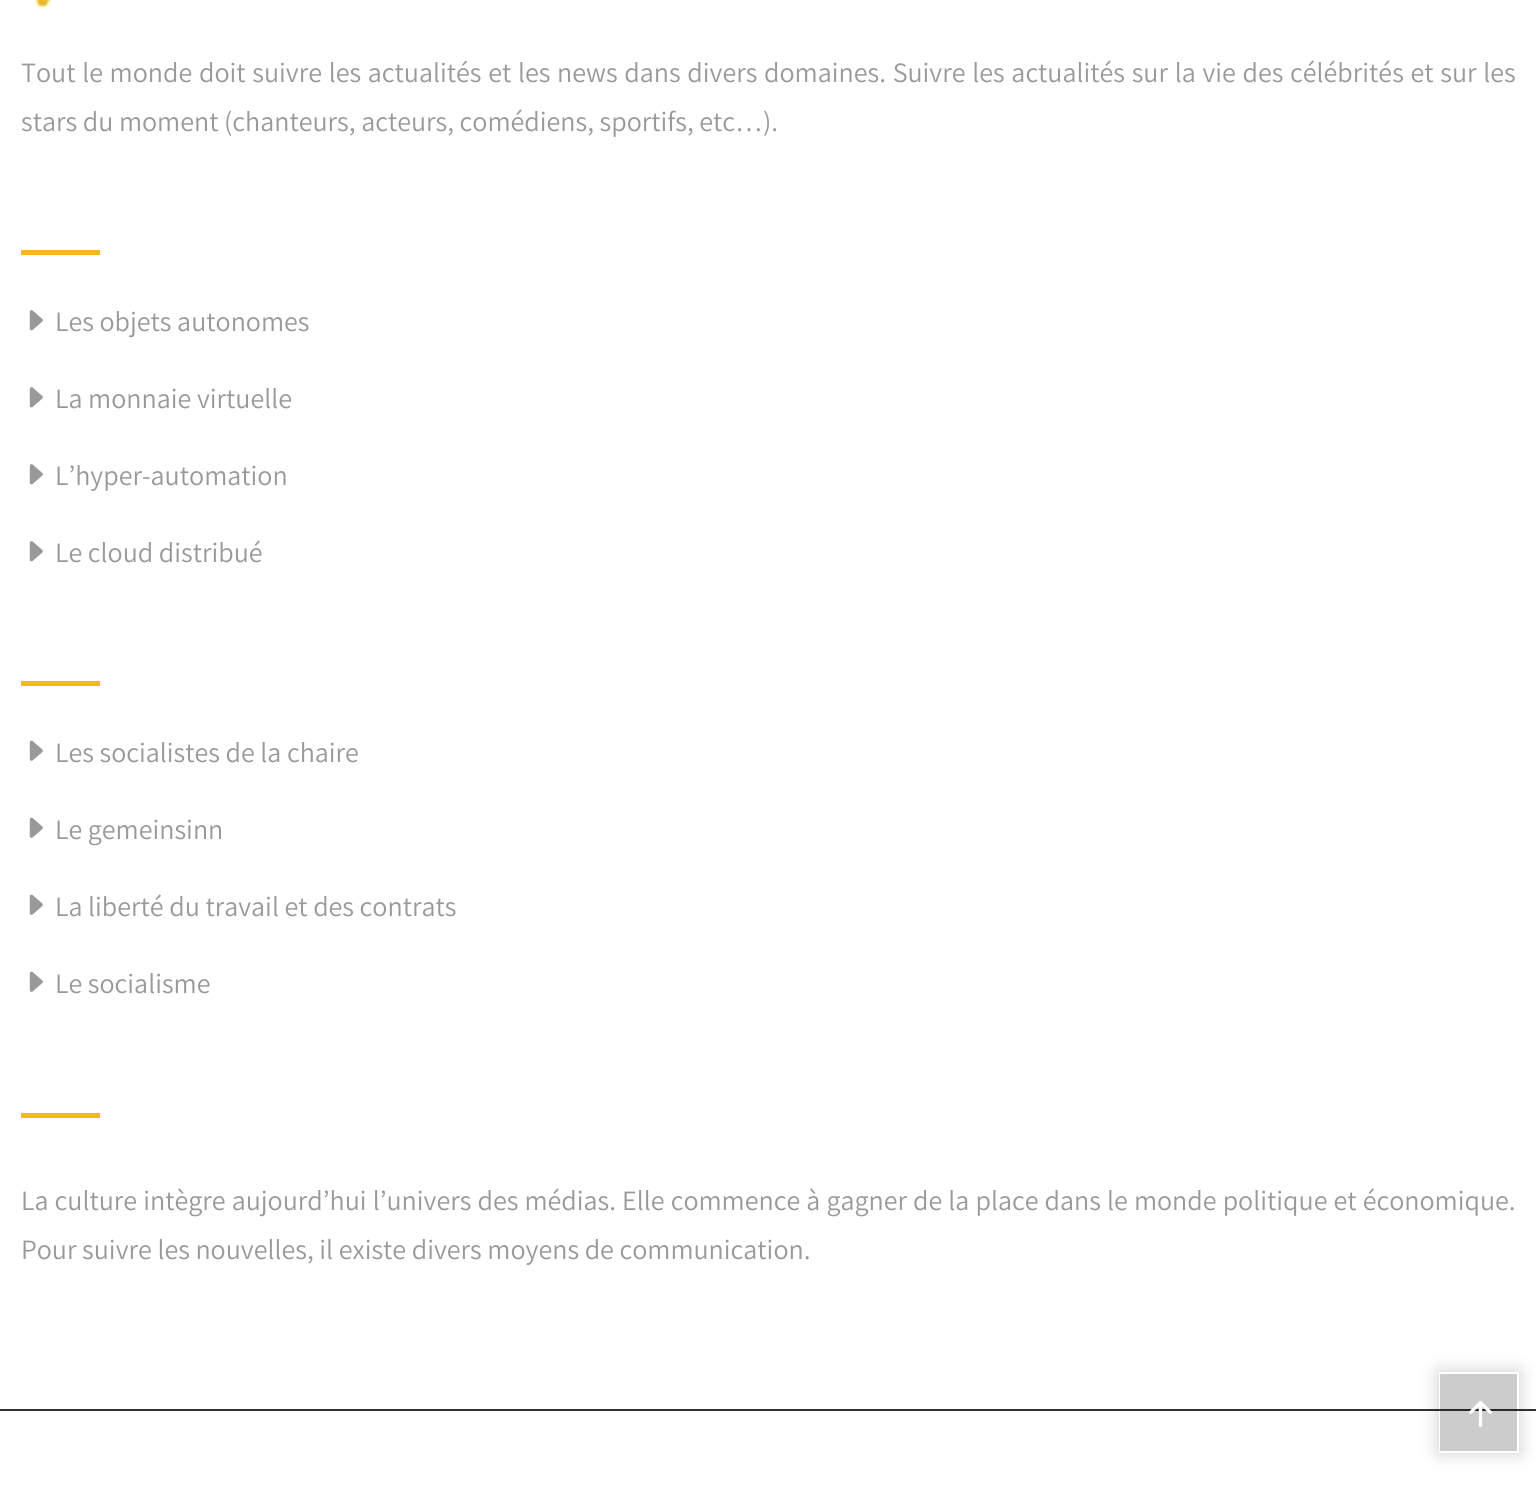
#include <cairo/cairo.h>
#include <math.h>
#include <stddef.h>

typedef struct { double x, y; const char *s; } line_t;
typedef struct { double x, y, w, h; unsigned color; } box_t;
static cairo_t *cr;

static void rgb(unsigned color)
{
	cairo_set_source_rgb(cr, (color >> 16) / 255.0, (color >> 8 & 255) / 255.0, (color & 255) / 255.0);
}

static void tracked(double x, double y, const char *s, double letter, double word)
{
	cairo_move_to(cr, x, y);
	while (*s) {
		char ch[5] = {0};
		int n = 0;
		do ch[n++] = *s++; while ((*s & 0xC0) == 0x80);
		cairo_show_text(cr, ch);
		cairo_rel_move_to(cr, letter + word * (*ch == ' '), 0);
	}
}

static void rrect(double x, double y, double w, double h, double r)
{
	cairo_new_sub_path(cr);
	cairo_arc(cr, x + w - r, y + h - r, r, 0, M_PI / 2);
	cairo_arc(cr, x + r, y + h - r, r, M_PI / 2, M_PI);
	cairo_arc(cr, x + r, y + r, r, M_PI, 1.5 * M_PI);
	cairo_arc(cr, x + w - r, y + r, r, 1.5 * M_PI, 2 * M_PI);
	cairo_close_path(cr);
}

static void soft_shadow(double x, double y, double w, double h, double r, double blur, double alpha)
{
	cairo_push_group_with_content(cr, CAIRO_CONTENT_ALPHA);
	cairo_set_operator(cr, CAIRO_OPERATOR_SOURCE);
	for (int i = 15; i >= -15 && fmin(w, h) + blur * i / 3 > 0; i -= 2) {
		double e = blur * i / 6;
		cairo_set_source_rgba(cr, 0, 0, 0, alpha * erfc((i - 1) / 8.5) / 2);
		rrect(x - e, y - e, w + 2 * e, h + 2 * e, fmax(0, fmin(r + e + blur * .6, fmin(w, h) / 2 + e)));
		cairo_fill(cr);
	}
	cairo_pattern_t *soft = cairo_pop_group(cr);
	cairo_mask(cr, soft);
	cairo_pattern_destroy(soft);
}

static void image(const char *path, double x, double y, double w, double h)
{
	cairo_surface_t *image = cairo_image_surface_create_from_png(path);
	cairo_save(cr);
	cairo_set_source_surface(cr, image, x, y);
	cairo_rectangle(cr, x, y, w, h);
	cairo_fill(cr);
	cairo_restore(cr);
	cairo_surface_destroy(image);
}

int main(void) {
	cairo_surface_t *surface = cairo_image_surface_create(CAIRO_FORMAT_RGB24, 1536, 1486);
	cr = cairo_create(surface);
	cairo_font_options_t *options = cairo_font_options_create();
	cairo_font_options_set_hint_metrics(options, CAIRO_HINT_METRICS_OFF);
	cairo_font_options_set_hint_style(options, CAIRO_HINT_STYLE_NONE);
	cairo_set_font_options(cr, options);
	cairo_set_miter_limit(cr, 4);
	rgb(0xffffff);
	cairo_paint(cr);
	rgb(0xcccccc);
	cairo_rectangle(cr, 1440, 1374, 77, 77);
	cairo_fill(cr);
	image("img/1.png", 33, 0, 19, 7);
	rgb(0xf5b81e);
	cairo_rectangle(cr, 21, 250, 79, 5);
	cairo_fill(cr);
	image("img/2.png", 29, 310, 14, 21);
	image("img/2.png", 29, 387, 14, 21);
	image("img/2.png", 29, 464, 14, 21);
	image("img/2.png", 29, 541, 14, 21);
	cairo_rectangle(cr, 21, 681, 79, 5);
	cairo_fill(cr);
	image("img/3.png", 29, 740, 14, 21);
	image("img/3.png", 29, 817, 14, 21);
	image("img/3.png", 29, 894, 14, 21);
	image("img/3.png", 29, 971, 14, 21);
	{
		static const box_t items[] = {
			{21, 1113, 79, 5, 0xf5b81e},
			{0, 1409, 1536, 2, 0x333130},
			{1440, 1409, 77, 2, 0x292726},
		};
		for (size_t i = 0; i < sizeof items / sizeof *items; i++) {
			rgb(items[i].color);
			cairo_rectangle(cr, items[i].x, items[i].y, items[i].w, items[i].h);
			cairo_fill(cr);
		}
	}
	cairo_save(cr);
	cairo_set_fill_rule(cr, CAIRO_FILL_RULE_EVEN_ODD);
	cairo_new_path(cr);
	cairo_move_to(cr, 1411, 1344);
	cairo_line_to(cr, 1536, 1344);
	cairo_line_to(cr, 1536, 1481);
	cairo_line_to(cr, 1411, 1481);
	cairo_close_path(cr);
	cairo_move_to(cr, 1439, 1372);
	cairo_line_to(cr, 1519, 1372);
	cairo_line_to(cr, 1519, 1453);
	cairo_line_to(cr, 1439, 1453);
	cairo_close_path(cr);
	cairo_clip(cr);
	rgb(0x000000);
	soft_shadow(1439, 1372, 80, 81, 0, 9, 0.2);
	cairo_restore(cr);
	image("img/4.png", 1469, 1400, 23, 27);
	cairo_select_font_face(cr, "Assistant", CAIRO_FONT_SLANT_NORMAL, CAIRO_FONT_WEIGHT_NORMAL);
	cairo_set_font_size(cr, 28);
	rgb(0x999999);
	tracked(21, 82, "Tout le monde doit suivre les actualités et les news dans divers domaines. Suivre les actualités sur la vie des célébrités et sur les", 0, 1.1);
	{
		static const line_t items[] = {
			{21, 131, "stars du moment (chanteurs, acteurs, comédiens, sportifs, etc…)."},
			{55, 331, "Les objets autonomes"},
			{55, 408, "La monnaie virtuelle"},
			{55, 485, "L’hyper-automation"},
			{55, 562, "Le cloud distribué"},
			{55, 762, "Les socialistes de la chaire"},
			{55, 839, "Le gemeinsinn"},
			{55, 916, "La liberté du travail et des contrats"},
			{55, 993, "Le socialisme"},
		};
		for (size_t i = 0; i < sizeof items / sizeof *items; i++) {
			cairo_move_to(cr, items[i].x, items[i].y);
			cairo_show_text(cr, items[i].s);
		}
	}
	tracked(21, 1210, "La culture intègre aujourd’hui l’univers des médias. Elle commence à gagner de la place dans le monde politique et économique.", 0, 0.5);
	cairo_move_to(cr, 21, 1259);
	cairo_show_text(cr, "Pour suivre les nouvelles, il existe divers moyens de communication.");
	cairo_surface_write_to_png(surface, "page.png");
	cairo_font_options_destroy(options);
	cairo_destroy(cr);
	cairo_surface_destroy(surface);
	return 0;
}
